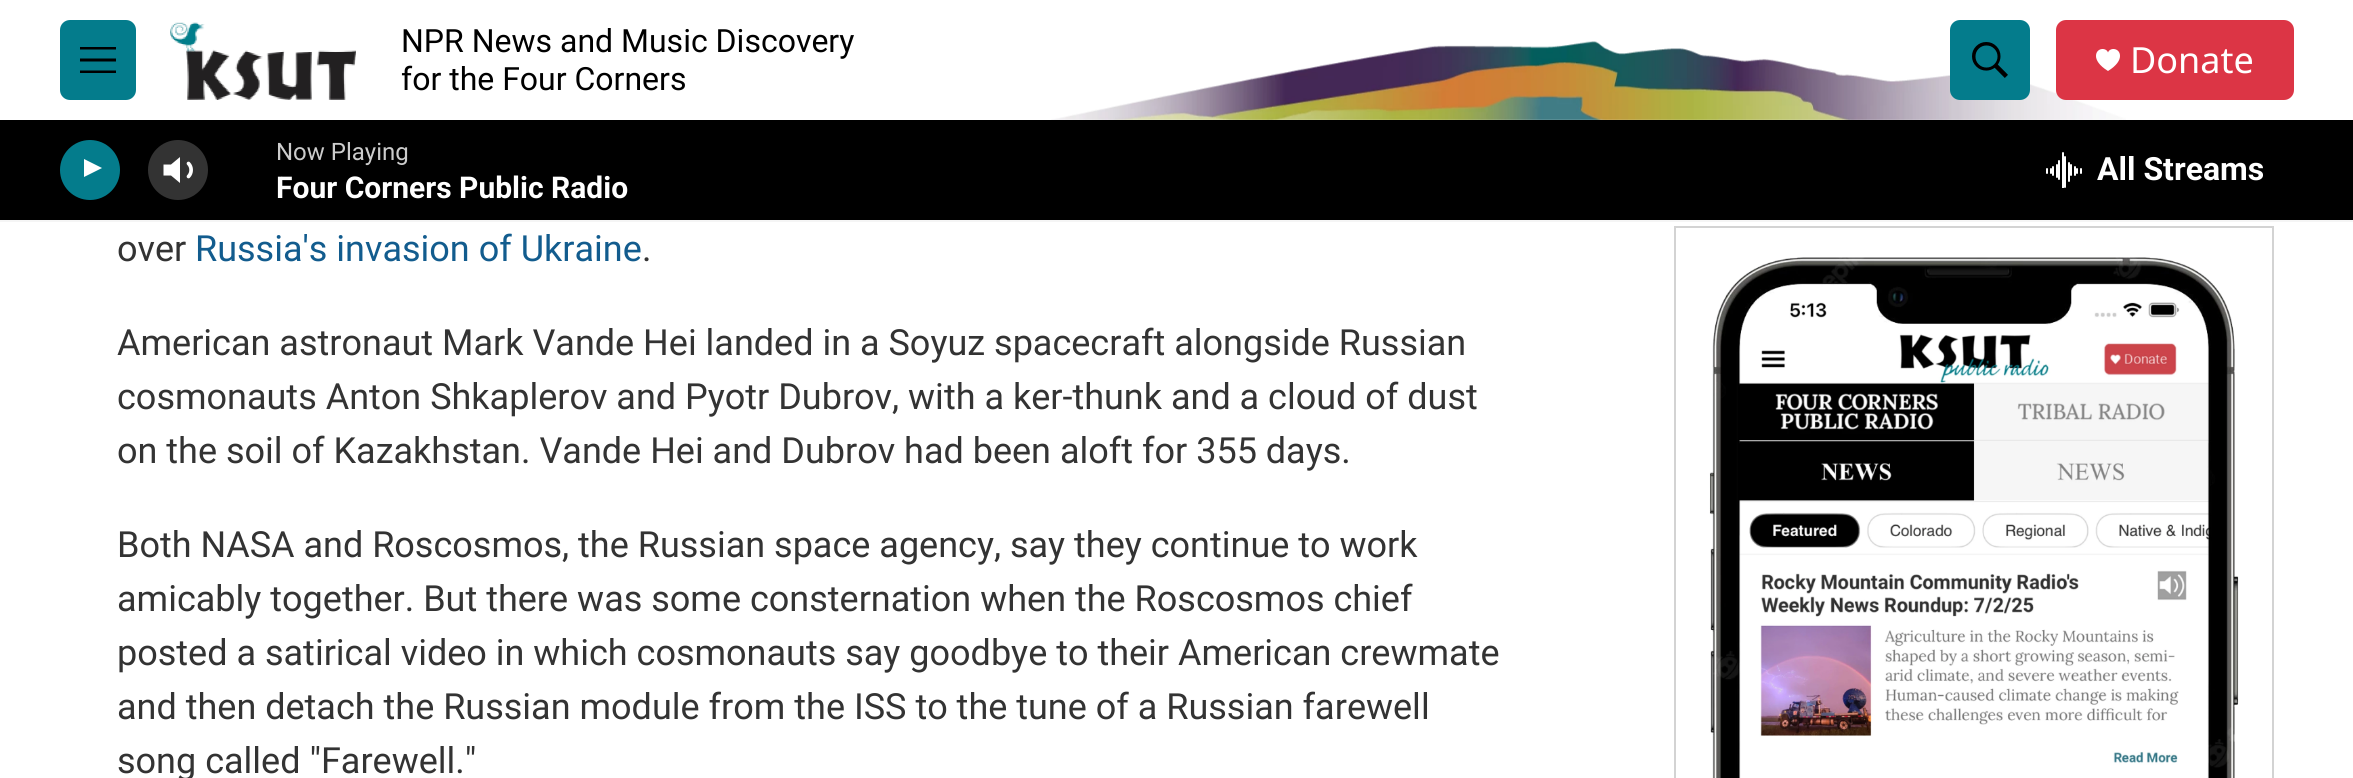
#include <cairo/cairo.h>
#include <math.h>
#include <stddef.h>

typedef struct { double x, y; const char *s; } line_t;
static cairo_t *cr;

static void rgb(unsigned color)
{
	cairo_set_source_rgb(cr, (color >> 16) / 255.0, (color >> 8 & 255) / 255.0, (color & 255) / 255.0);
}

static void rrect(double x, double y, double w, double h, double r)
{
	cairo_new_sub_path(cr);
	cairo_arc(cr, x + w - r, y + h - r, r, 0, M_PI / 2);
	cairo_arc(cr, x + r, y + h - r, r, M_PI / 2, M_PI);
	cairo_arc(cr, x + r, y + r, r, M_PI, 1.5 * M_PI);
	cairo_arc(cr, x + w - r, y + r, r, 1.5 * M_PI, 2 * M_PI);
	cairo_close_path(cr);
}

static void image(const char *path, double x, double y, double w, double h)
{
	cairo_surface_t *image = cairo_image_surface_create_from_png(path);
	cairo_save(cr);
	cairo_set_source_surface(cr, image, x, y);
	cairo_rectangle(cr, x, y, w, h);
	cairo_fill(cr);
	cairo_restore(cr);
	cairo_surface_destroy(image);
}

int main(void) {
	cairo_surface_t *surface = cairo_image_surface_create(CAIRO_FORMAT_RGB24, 2353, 778);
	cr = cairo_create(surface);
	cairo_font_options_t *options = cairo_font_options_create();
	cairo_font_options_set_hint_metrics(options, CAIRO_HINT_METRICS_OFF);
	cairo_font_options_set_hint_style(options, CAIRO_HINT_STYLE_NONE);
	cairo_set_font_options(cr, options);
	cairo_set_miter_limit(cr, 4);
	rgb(0xffffff);
	cairo_paint(cr);
	rgb(0xf5f5f5);
	cairo_rectangle(cr, 0, 220, 2353, 2);
	cairo_fill(cr);
	rgb(0x047c8c);
	rrect(60, 20, 76, 80, 10);
	cairo_fill(cr);
	rgb(0x000000);
	cairo_set_fill_rule(cr, CAIRO_FILL_RULE_EVEN_ODD);
	cairo_new_path(cr);
	cairo_move_to(cr, 80, 61.5);
	cairo_line_to(cr, 80, 58.5);
	cairo_line_to(cr, 116, 58.5);
	cairo_line_to(cr, 116, 61.5);
	cairo_close_path(cr);
	cairo_move_to(cr, 80, 49.5);
	cairo_line_to(cr, 80, 47);
	cairo_line_to(cr, 116, 47);
	cairo_line_to(cr, 116, 49.5);
	cairo_close_path(cr);
	cairo_move_to(cr, 80, 73);
	cairo_line_to(cr, 80, 70.5);
	cairo_line_to(cr, 116, 70.5);
	cairo_line_to(cr, 116, 73);
	cairo_close_path(cr);
	cairo_fill(cr);
	image("img/1.png", 170, 22, 186, 78);
	image("img/4.png", 1051, 41, 1075, 79);
	rgb(0x047c8c);
	rrect(1950, 20, 80, 80, 10);
	cairo_fill(cr);
	image("img/2.png", 1972, 42, 36, 36);
	rgb(0xdc3545);
	rrect(2056, 20, 238, 80, 10);
	cairo_fill(cr);
	image("img/3.png", 2096, 49, 24, 22);
	rgb(0x000000);
	cairo_rectangle(cr, 0, 120, 2353, 100);
	cairo_fill(cr);
	rgb(0x047c8c);
	cairo_arc(cr, 90, 170, 30, 0, 2 * M_PI);
	cairo_fill(cr);
	cairo_save(cr);
	cairo_set_fill_rule(cr, CAIRO_FILL_RULE_WINDING);
	cairo_rectangle(cr, 84, 156, 23, 30);
	cairo_clip(cr);
	rgb(0xffffff);
	cairo_new_path(cr);
	cairo_move_to(cr, 83, 158.5);
	cairo_line_to(cr, 102, 168);
	cairo_line_to(cr, 83, 177.5);
	cairo_close_path(cr);
	cairo_fill(cr);
	cairo_restore(cr);
	rgb(0xffffff);
	cairo_set_fill_rule(cr, CAIRO_FILL_RULE_WINDING);
	cairo_new_path(cr);
	cairo_move_to(cr, 180, 157);
	cairo_line_to(cr, 171, 164.5);
	cairo_line_to(cr, 163.5, 164.5);
	cairo_line_to(cr, 163.5, 175.5);
	cairo_line_to(cr, 171, 175.5);
	cairo_line_to(cr, 180, 183);
	cairo_close_path(cr);
	cairo_fill(cr);
	cairo_new_path(cr);
	cairo_move_to(cr, 188.5, 163.5);
	cairo_curve_to(cr, 192, 167, 192, 173, 188.5, 176.5);
	cairo_set_line_width(cr, 3.7);
	cairo_set_line_cap(cr, CAIRO_LINE_CAP_ROUND);
	cairo_set_line_join(cr, CAIRO_LINE_JOIN_ROUND);
	cairo_stroke(cr);
	cairo_set_source_rgba(cr, 1, 1, 1, 0.2);
	cairo_arc(cr, 178, 170, 30, 0, 2 * M_PI);
	cairo_fill(cr);
	image("img/5.png", 2046, 152, 36, 36);
	cairo_rectangle(cr, 1675, 227, 598, 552);
	rgb(0xd3d3d3);
	cairo_set_line_width(cr, 2);
	cairo_set_line_cap(cr, CAIRO_LINE_CAP_BUTT);
	cairo_set_line_join(cr, CAIRO_LINE_JOIN_MITER);
	cairo_stroke(cr);
	image("img/6.png", 1709, 257, 530, 521);
	cairo_select_font_face(cr, "Roboto", CAIRO_FONT_SLANT_NORMAL, CAIRO_FONT_WEIGHT_NORMAL);
	cairo_set_font_size(cr, 32);
	rgb(0x000000);
	cairo_move_to(cr, 401, 52);
	cairo_show_text(cr, "NPR News and Music Discovery");
	cairo_move_to(cr, 401, 90);
	cairo_show_text(cr, "for the Four Corners");
	cairo_select_font_face(cr, "Noto Sans", CAIRO_FONT_SLANT_NORMAL, CAIRO_FONT_WEIGHT_NORMAL);
	cairo_set_font_size(cr, 36);
	rgb(0xffffff);
	cairo_move_to(cr, 2130, 73);
	cairo_show_text(cr, "Donate");
	cairo_select_font_face(cr, "Roboto", CAIRO_FONT_SLANT_NORMAL, CAIRO_FONT_WEIGHT_NORMAL);
	cairo_set_font_size(cr, 24);
	rgb(0xcccccc);
	cairo_move_to(cr, 276, 160);
	cairo_show_text(cr, "Now Playing");
	cairo_select_font_face(cr, "Roboto", CAIRO_FONT_SLANT_NORMAL, CAIRO_FONT_WEIGHT_BOLD);
	cairo_set_font_size(cr, 30);
	rgb(0xffffff);
	cairo_move_to(cr, 276, 198);
	cairo_show_text(cr, "Four Corners Public Radio");
	cairo_set_font_size(cr, 32);
	cairo_move_to(cr, 2097, 180);
	cairo_show_text(cr, "All Streams");
	cairo_select_font_face(cr, "Roboto", CAIRO_FONT_SLANT_NORMAL, CAIRO_FONT_WEIGHT_NORMAL);
	cairo_set_font_size(cr, 36);
	rgb(0x333333);
	cairo_move_to(cr, 117, 261);
	cairo_show_text(cr, "over");
	rgb(0x125c8e);
	cairo_move_to(cr, 195, 261);
	cairo_show_text(cr, "Russia's invasion of Ukraine");
	rgb(0x333333);
	{
		static const line_t items[] = {
			{642, 261, "."},
			{117, 355, "American astronaut Mark Vande Hei landed in a Soyuz spacecraft alongside Russian"},
			{117, 409, "cosmonauts Anton Shkaplerov and Pyotr Dubrov, with a ker-thunk and a cloud of dust"},
			{117, 463, "on the soil of Kazakhstan. Vande Hei and Dubrov had been aloft for 355 days."},
			{117, 557, "Both NASA and Roscosmos, the Russian space agency, say they continue to work"},
			{117, 611, "amicably together. But there was some consternation when the Roscosmos chief"},
			{117, 665, "posted a satirical video in which cosmonauts say goodbye to their American crewmate"},
			{117, 719, "and then detach the Russian module from the ISS to the tune of a Russian farewell"},
			{117, 773, "song called \"Farewell.\""},
		};
		for (size_t i = 0; i < sizeof items / sizeof *items; i++) {
			cairo_move_to(cr, items[i].x, items[i].y);
			cairo_show_text(cr, items[i].s);
		}
	}
	cairo_surface_write_to_png(surface, "page.png");
	cairo_font_options_destroy(options);
	cairo_destroy(cr);
	cairo_surface_destroy(surface);
	return 0;
}
